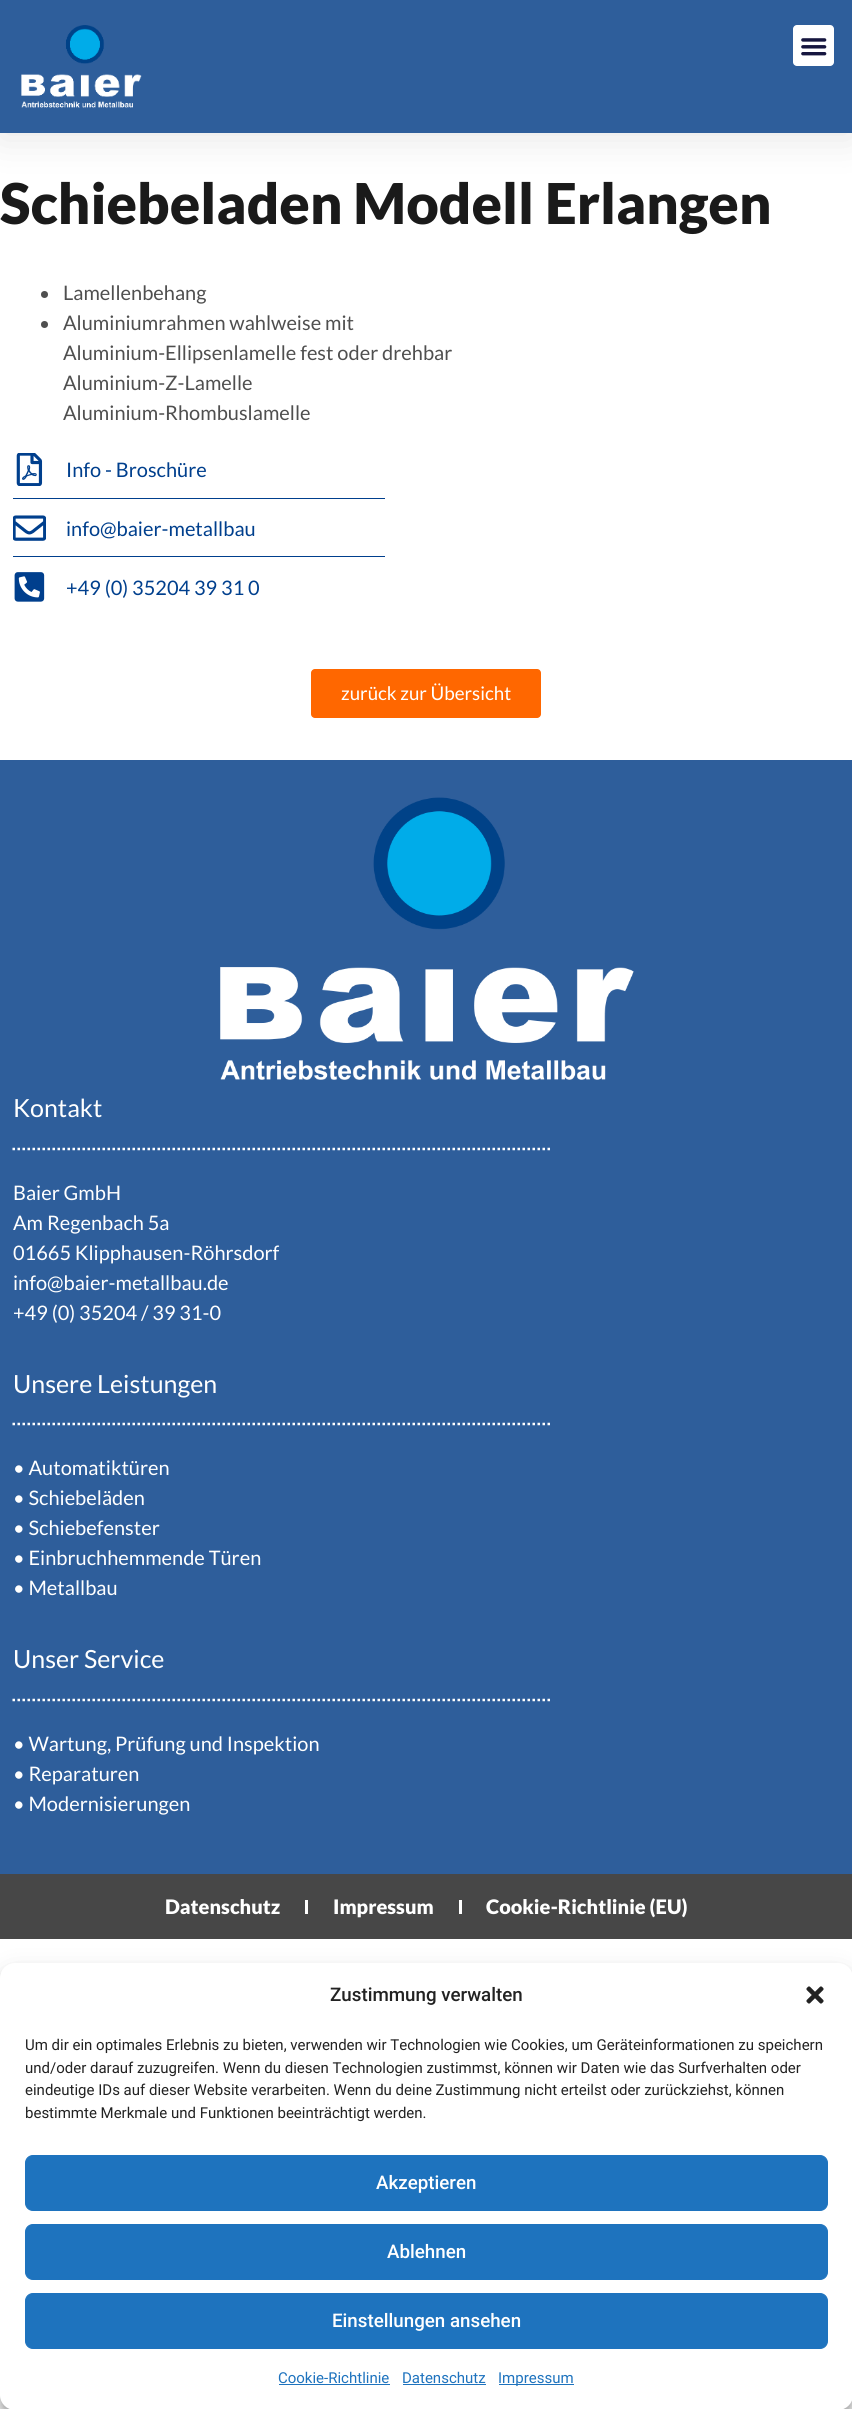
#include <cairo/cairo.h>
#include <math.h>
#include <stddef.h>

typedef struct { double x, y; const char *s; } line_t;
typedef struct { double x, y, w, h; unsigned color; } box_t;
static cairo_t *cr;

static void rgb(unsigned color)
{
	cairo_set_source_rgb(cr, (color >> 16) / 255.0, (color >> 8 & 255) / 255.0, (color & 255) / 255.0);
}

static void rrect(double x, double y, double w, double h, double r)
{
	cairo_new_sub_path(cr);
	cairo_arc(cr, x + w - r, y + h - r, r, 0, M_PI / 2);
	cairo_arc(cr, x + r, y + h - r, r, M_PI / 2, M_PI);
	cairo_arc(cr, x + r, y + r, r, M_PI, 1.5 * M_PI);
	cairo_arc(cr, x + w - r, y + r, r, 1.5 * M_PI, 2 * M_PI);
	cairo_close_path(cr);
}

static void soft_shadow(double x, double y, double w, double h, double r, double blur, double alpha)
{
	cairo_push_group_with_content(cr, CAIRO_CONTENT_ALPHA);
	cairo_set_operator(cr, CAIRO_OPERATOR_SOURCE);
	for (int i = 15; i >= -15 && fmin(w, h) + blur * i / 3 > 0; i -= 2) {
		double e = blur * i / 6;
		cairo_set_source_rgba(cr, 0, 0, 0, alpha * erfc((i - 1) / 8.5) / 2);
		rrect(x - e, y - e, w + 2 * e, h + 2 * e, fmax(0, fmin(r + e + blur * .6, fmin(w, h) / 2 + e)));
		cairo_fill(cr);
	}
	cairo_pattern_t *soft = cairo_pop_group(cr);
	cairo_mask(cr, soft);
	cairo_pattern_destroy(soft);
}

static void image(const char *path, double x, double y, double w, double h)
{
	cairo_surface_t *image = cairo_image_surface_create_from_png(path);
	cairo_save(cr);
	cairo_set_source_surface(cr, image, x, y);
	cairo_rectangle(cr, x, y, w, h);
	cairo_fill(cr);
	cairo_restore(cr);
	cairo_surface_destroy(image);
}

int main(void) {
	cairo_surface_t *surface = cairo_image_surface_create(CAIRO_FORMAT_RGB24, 852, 2409);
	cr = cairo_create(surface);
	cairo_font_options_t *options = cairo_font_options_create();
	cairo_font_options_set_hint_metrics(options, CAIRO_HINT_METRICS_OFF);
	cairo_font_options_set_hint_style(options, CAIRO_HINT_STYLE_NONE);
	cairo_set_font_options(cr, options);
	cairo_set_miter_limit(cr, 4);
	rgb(0xffffff);
	cairo_paint(cr);
	rgb(0x000000);
	soft_shadow(0, 6, 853, 133, 0, 19, 0.1);
	rgb(0x2e5e9b);
	cairo_rectangle(cr, 0, 0, 852, 133);
	cairo_fill(cr);
	image("img/1.png", 21, 25, 121, 83);
	rgb(0xffffff);
	rrect(793, 25, 41, 41, 4);
	cairo_fill(cr);
	image("img/2.png", 801, 38, 26, 18);
	rgb(0x4f4f4f);
	cairo_arc(cr, 44.5, 294.5, 3.5, 0, 2 * M_PI);
	cairo_fill(cr);
	cairo_arc(cr, 44.5, 324.5, 3.5, 0, 2 * M_PI);
	cairo_fill(cr);
	image("img/3.png", 16, 453, 27, 33);
	rgb(0x003f8d);
	cairo_rectangle(cr, 13, 498, 372, 1);
	cairo_fill(cr);
	image("img/4.png", 13, 515, 33, 26);
	cairo_rectangle(cr, 13, 556, 372, 1);
	cairo_fill(cr);
	image("img/5.png", 14, 572, 31, 30);
	rgb(0xff6700);
	rrect(311, 669, 230, 49, 4);
	cairo_fill(cr);
	rgb(0x2e5e9b);
	cairo_rectangle(cr, 0, 760, 852, 1114);
	cairo_fill(cr);
	image("img/6.png", 220, 797, 414, 283);
	cairo_new_path(cr);
	cairo_move_to(cr, 12.5, 1149);
	cairo_line_to(cr, 550, 1149);
	rgb(0xffffff);
	cairo_set_line_width(cr, 2.5);
	cairo_set_dash(cr, (double[]){2.5, 2.5}, 2, 0);
	cairo_stroke(cr);
	cairo_new_path(cr);
	cairo_move_to(cr, 12.5, 1424);
	cairo_line_to(cr, 550, 1424);
	cairo_stroke(cr);
	cairo_new_path(cr);
	cairo_move_to(cr, 12.5, 1700);
	cairo_line_to(cr, 550, 1700);
	cairo_stroke(cr);
	{
		static const box_t items[] = {
			{0, 1874, 852, 65, 0x474747},
			{305, 1900, 3, 14, 0xffffff},
			{459, 1900, 3, 14, 0xffffff},
		};
		for (size_t i = 0; i < sizeof items / sizeof *items; i++) {
			rgb(items[i].color);
			cairo_rectangle(cr, items[i].x, items[i].y, items[i].w, items[i].h);
			cairo_fill(cr);
		}
	}
	rgb(0x000000);
	soft_shadow(0, 1970, 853, 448, 15, 4, 0.23);
	soft_shadow(0, 1975, 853, 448, 15, 12.5, 0.19);
	rgb(0xffffff);
	rrect(0, 1963, 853, 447, 15);
	cairo_fill(cr);
	image("img/7.png", 806, 1986, 18, 18);
	rgb(0x1e73be);
	rrect(25.5, 2155.5, 802, 55, 7.5);
	cairo_fill_preserve(cr);
	cairo_set_line_width(cr, 1);
	cairo_set_dash(cr, NULL, 0, 0);
	cairo_stroke(cr);
	rrect(25.5, 2224.5, 802, 55, 7.5);
	cairo_fill_preserve(cr);
	cairo_stroke(cr);
	rrect(25.5, 2293.5, 802, 55, 7.5);
	cairo_fill_preserve(cr);
	cairo_stroke(cr);
	{
		static const box_t items[] = {
			{279, 2384, 111, 1, 0x1e73be},
			{403, 2384, 83, 1, 0x1e73be},
			{499, 2384, 75, 1, 0x1e73be},
		};
		for (size_t i = 0; i < sizeof items / sizeof *items; i++) {
			rgb(items[i].color);
			cairo_rectangle(cr, items[i].x, items[i].y, items[i].w, items[i].h);
			cairo_fill(cr);
		}
	}
	cairo_select_font_face(cr, "Lato Black", CAIRO_FONT_SLANT_NORMAL, CAIRO_FONT_WEIGHT_NORMAL);
	cairo_set_font_size(cr, 56.25);
	rgb(0x1a1a1a);
	cairo_move_to(cr, 0, 224);
	cairo_show_text(cr, "Schiebeladen Modell Erlangen");
	cairo_select_font_face(cr, "Lato", CAIRO_FONT_SLANT_NORMAL, CAIRO_FONT_WEIGHT_NORMAL);
	cairo_set_font_size(cr, 20);
	rgb(0x4f4f4f);
	{
		static const line_t items[] = {
			{63, 300, "Lamellenbehang"},
			{63, 330, "Aluminiumrahmen wahlweise mit"},
			{63, 360, "Aluminium-Ellipsenlamelle fest oder drehbar"},
			{63, 390, "Aluminium-Z-Lamelle"},
			{63, 420, "Aluminium-Rhombuslamelle"},
		};
		for (size_t i = 0; i < sizeof items / sizeof *items; i++) {
			cairo_move_to(cr, items[i].x, items[i].y);
			cairo_show_text(cr, items[i].s);
		}
	}
	rgb(0x003f8d);
	{
		static const line_t items[] = {
			{66, 477, "Info - Broschüre"},
			{66, 536, "info@baier-metallbau"},
			{66, 595, "+49 (0) 35204 39 31 0"},
		};
		for (size_t i = 0; i < sizeof items / sizeof *items; i++) {
			cairo_move_to(cr, items[i].x, items[i].y);
			cairo_show_text(cr, items[i].s);
		}
	}
	cairo_set_font_size(cr, 18.75);
	rgb(0xffffff);
	cairo_move_to(cr, 341, 700);
	cairo_show_text(cr, "zurück zur Übersicht");
	cairo_set_font_size(cr, 25);
	cairo_move_to(cr, 13, 1117);
	cairo_show_text(cr, "Kontakt");
	cairo_set_font_size(cr, 20);
	{
		static const line_t items[] = {
			{13, 1200, "Baier GmbH"},
			{13, 1230, "Am Regenbach 5a"},
			{13, 1260, "01665 Klipphausen-Röhrsdorf"},
			{13, 1290, "info@baier-metallbau.de"},
			{13, 1320, "+49 (0) 35204 / 39 31-0"},
		};
		for (size_t i = 0; i < sizeof items / sizeof *items; i++) {
			cairo_move_to(cr, items[i].x, items[i].y);
			cairo_show_text(cr, items[i].s);
		}
	}
	cairo_set_font_size(cr, 25);
	cairo_move_to(cr, 13, 1393);
	cairo_show_text(cr, "Unsere Leistungen");
	cairo_set_font_size(cr, 20);
	{
		static const line_t items[] = {
			{13, 1475, "• Automatiktüren"},
			{13, 1505, "• Schiebeläden"},
			{13, 1535, "• Schiebefenster"},
			{13, 1565, "• Einbruchhemmende Türen"},
			{13, 1595, "• Metallbau"},
		};
		for (size_t i = 0; i < sizeof items / sizeof *items; i++) {
			cairo_move_to(cr, items[i].x, items[i].y);
			cairo_show_text(cr, items[i].s);
		}
	}
	cairo_set_font_size(cr, 25);
	cairo_move_to(cr, 13, 1668);
	cairo_show_text(cr, "Unser Service");
	cairo_set_font_size(cr, 20);
	{
		static const line_t items[] = {
			{13, 1751, "• Wartung, Prüfung und Inspektion"},
			{13, 1781, "• Reparaturen"},
			{13, 1811, "• Modernisierungen"},
		};
		for (size_t i = 0; i < sizeof items / sizeof *items; i++) {
			cairo_move_to(cr, items[i].x, items[i].y);
			cairo_show_text(cr, items[i].s);
		}
	}
	cairo_select_font_face(cr, "Lato Black", CAIRO_FONT_SLANT_NORMAL, CAIRO_FONT_WEIGHT_NORMAL);
	{
		static const line_t items[] = {
			{165, 1914, "Datenschutz"},
			{333, 1914, "Impressum"},
			{486, 1914, "Cookie-Richtlinie (EU)"},
		};
		for (size_t i = 0; i < sizeof items / sizeof *items; i++) {
			cairo_move_to(cr, items[i].x, items[i].y);
			cairo_show_text(cr, items[i].s);
		}
	}
	cairo_select_font_face(cr, "Roboto Medium", CAIRO_FONT_SLANT_NORMAL, CAIRO_FONT_WEIGHT_NORMAL);
	cairo_set_font_size(cr, 18.75);
	rgb(0x222222);
	cairo_move_to(cr, 330, 2001);
	cairo_show_text(cr, "Zustimmung verwalten");
	cairo_select_font_face(cr, "Roboto", CAIRO_FONT_SLANT_NORMAL, CAIRO_FONT_WEIGHT_NORMAL);
	cairo_set_font_size(cr, 15);
	{
		static const line_t items[] = {
			{25, 2050, "Um dir ein optimales Erlebnis zu bieten, verwenden wir Technologien wie Cookies, um Geräteinformationen zu speichern"},
			{25, 2073, "und/oder darauf zuzugreifen. Wenn du diesen Technologien zustimmst, können wir Daten wie das Surfverhalten oder"},
			{25, 2095, "eindeutige IDs auf dieser Website verarbeiten. Wenn du deine Zustimmung nicht erteilst oder zurückziehst, können"},
			{25, 2118, "bestimmte Merkmale und Funktionen beeinträchtigt werden."},
		};
		for (size_t i = 0; i < sizeof items / sizeof *items; i++) {
			cairo_move_to(cr, items[i].x, items[i].y);
			cairo_show_text(cr, items[i].s);
		}
	}
	cairo_select_font_face(cr, "Roboto Medium", CAIRO_FONT_SLANT_NORMAL, CAIRO_FONT_WEIGHT_NORMAL);
	cairo_set_font_size(cr, 18.75);
	rgb(0xffffff);
	{
		static const line_t items[] = {
			{376, 2189, "Akzeptieren"},
			{387, 2258, "Ablehnen"},
			{332, 2327, "Einstellungen ansehen"},
		};
		for (size_t i = 0; i < sizeof items / sizeof *items; i++) {
			cairo_move_to(cr, items[i].x, items[i].y);
			cairo_show_text(cr, items[i].s);
		}
	}
	cairo_select_font_face(cr, "Roboto", CAIRO_FONT_SLANT_NORMAL, CAIRO_FONT_WEIGHT_NORMAL);
	cairo_set_font_size(cr, 15);
	rgb(0x1e73be);
	{
		static const line_t items[] = {
			{278, 2383, "Cookie-Richtlinie"},
			{402, 2383, "Datenschutz"},
			{498, 2383, "Impressum"},
		};
		for (size_t i = 0; i < sizeof items / sizeof *items; i++) {
			cairo_move_to(cr, items[i].x, items[i].y);
			cairo_show_text(cr, items[i].s);
		}
	}
	cairo_surface_write_to_png(surface, "page.png");
	cairo_font_options_destroy(options);
	cairo_destroy(cr);
	cairo_surface_destroy(surface);
	return 0;
}
